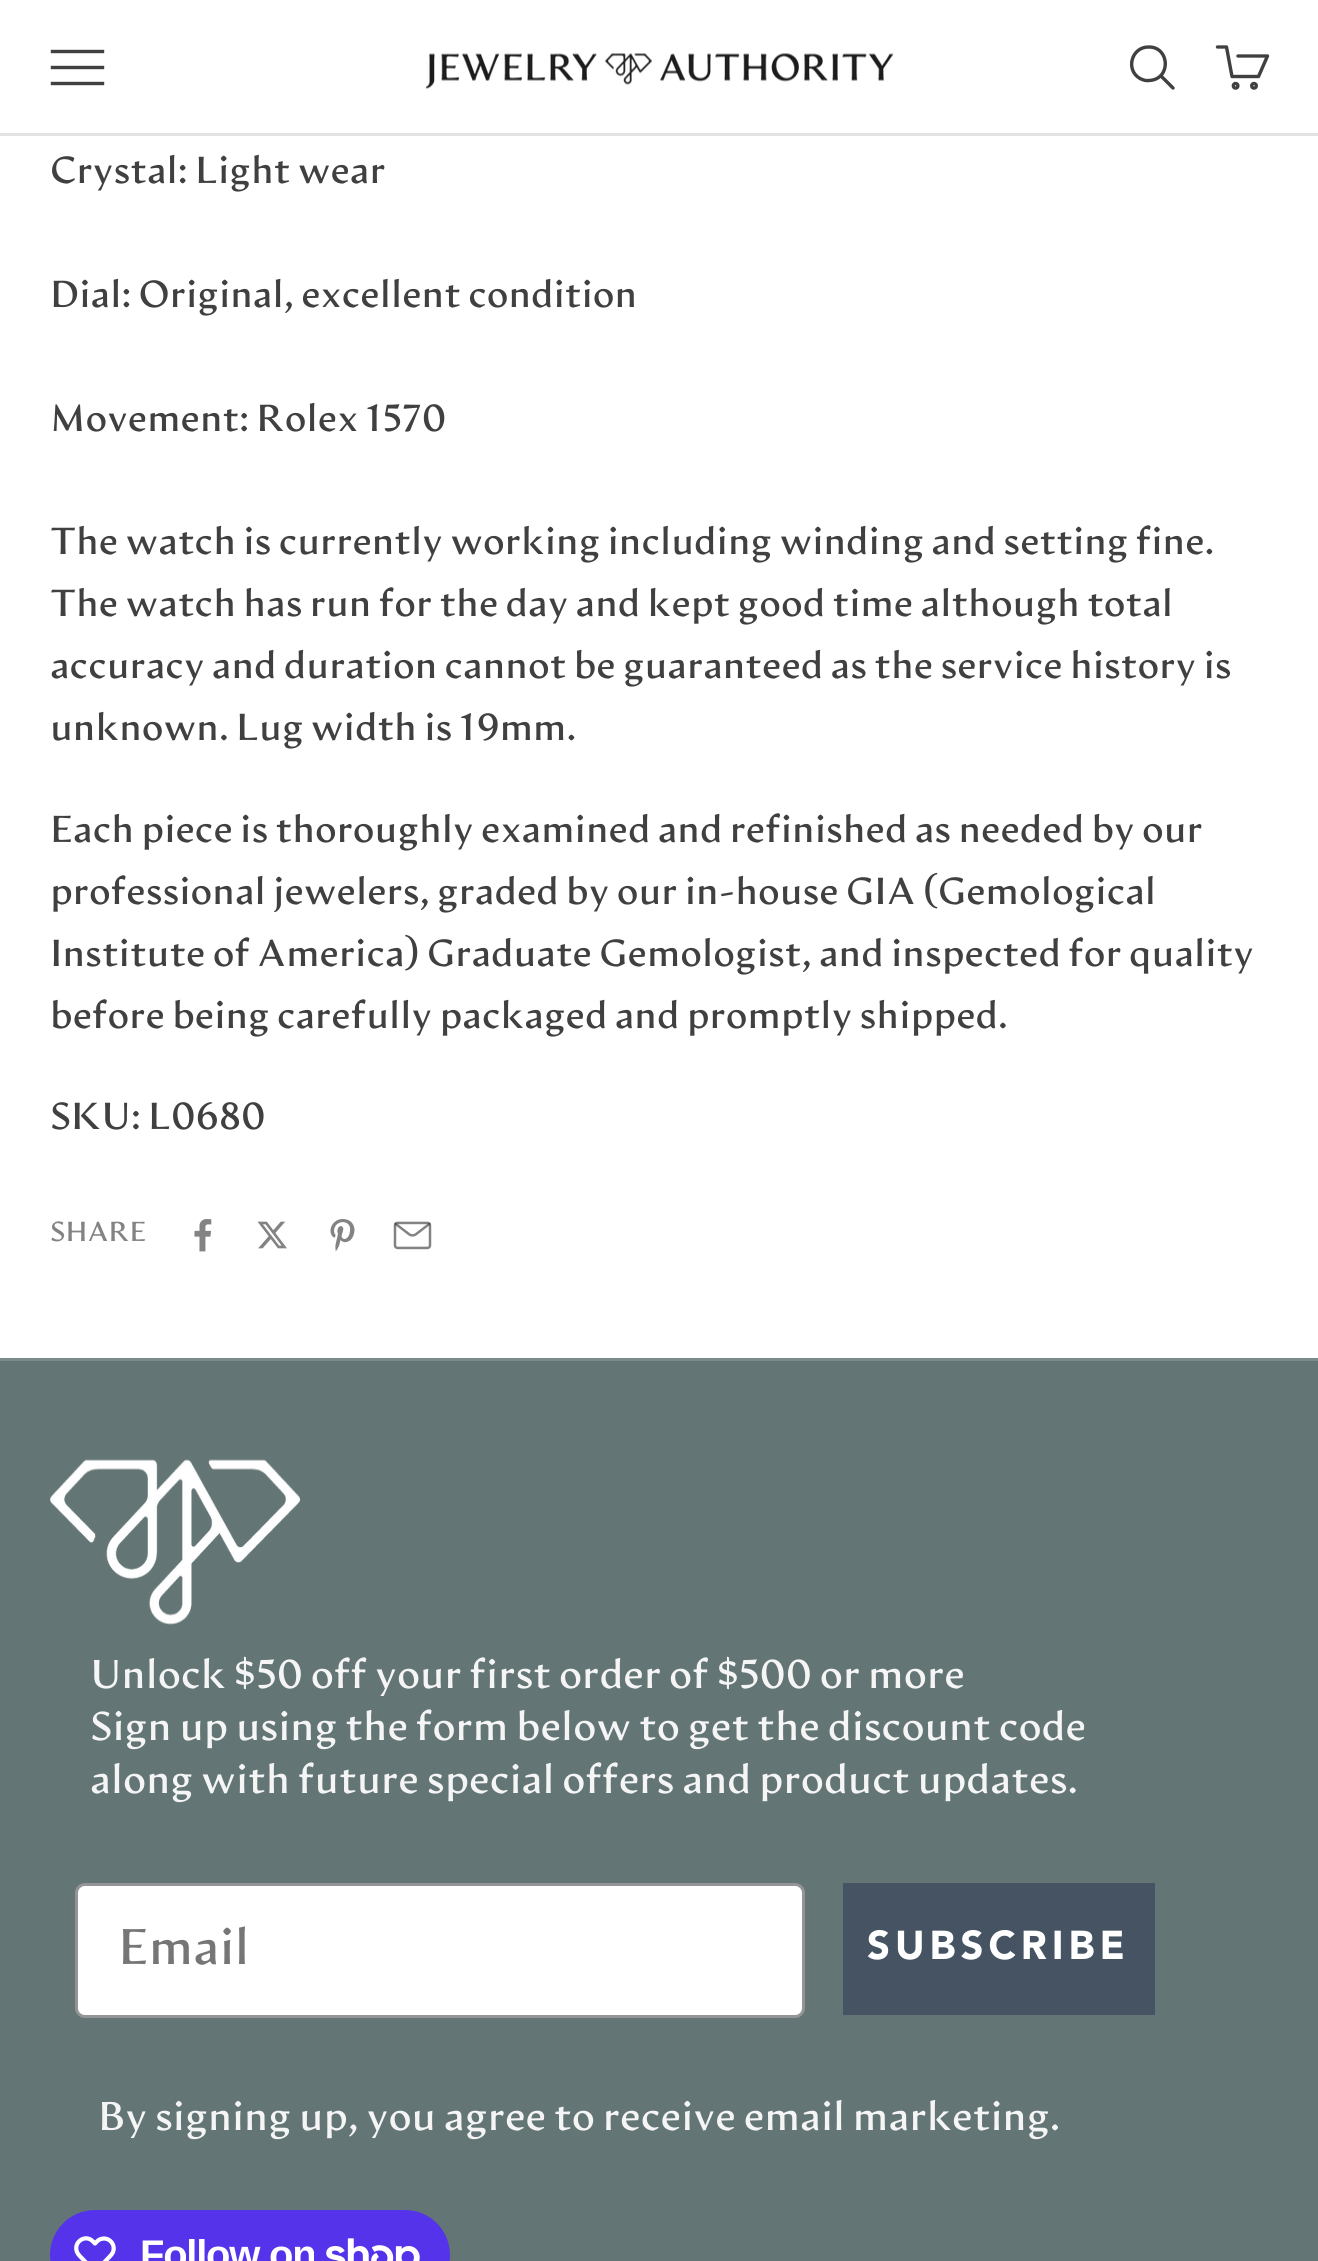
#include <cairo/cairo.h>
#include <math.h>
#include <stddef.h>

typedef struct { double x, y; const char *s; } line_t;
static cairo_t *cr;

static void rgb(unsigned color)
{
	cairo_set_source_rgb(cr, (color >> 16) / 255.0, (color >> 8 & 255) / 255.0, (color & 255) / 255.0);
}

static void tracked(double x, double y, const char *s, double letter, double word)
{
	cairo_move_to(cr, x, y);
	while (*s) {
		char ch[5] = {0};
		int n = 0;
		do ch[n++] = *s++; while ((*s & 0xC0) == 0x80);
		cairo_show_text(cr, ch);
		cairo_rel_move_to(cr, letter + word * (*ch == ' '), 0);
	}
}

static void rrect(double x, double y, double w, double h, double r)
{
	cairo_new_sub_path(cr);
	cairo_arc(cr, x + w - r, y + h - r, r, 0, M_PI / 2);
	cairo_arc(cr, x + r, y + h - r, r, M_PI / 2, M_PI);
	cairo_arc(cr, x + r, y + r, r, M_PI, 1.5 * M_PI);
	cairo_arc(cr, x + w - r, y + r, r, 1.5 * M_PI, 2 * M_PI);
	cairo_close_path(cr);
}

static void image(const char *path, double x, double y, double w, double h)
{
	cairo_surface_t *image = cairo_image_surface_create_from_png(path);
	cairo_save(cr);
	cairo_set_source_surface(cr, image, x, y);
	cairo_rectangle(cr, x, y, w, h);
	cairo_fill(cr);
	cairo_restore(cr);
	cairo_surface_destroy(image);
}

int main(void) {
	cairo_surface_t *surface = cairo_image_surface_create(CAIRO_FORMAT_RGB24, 1318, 2261);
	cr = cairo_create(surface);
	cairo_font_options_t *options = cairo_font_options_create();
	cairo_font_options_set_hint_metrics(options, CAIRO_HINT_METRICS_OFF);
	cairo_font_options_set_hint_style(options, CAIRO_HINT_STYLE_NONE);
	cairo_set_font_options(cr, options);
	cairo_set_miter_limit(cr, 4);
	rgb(0xffffff);
	cairo_paint(cr);
	rgb(0xe2e2e2);
	cairo_rectangle(cr, 0, 133, 1318, 3);
	cairo_fill(cr);
	cairo_new_path(cr);
	cairo_move_to(cr, 52.5, 83.5);
	cairo_line_to(cr, 102.5, 83.5);
	cairo_move_to(cr, 52.5, 67.5);
	cairo_line_to(cr, 102.5, 67.5);
	cairo_move_to(cr, 52.5, 51.5);
	cairo_line_to(cr, 102.5, 51.5);
	rgb(0x404040);
	cairo_set_line_width(cr, 3.4);
	cairo_set_line_cap(cr, CAIRO_LINE_CAP_SQUARE);
	cairo_stroke(cr);
	image("img/1.png", 425, 53, 469, 36);
	cairo_new_path(cr);
	cairo_move_to(cr, 1149, 47);
	cairo_curve_to(cr, 1131.5, 46.5, 1125, 70, 1140, 78.5);
	cairo_curve_to(cr, 1143, 80, 1146, 81, 1149, 80.5);
	cairo_curve_to(cr, 1171.5, 79.5, 1170, 47, 1149, 47);
	cairo_close_path(cr);
	cairo_set_line_cap(cr, CAIRO_LINE_CAP_BUTT);
	cairo_stroke(cr);
	cairo_new_path(cr);
	cairo_move_to(cr, 1161.5, 76.5);
	cairo_line_to(cr, 1173, 88);
	cairo_set_line_cap(cr, CAIRO_LINE_CAP_ROUND);
	cairo_stroke(cr);
	cairo_new_path(cr);
	cairo_move_to(cr, 1238, 56);
	cairo_line_to(cr, 1267.5, 56);
	cairo_line_to(cr, 1258.5, 76.5);
	cairo_line_to(cr, 1232, 76.5);
	cairo_line_to(cr, 1226.5, 47);
	cairo_line_to(cr, 1217.5, 47);
	cairo_set_line_join(cr, CAIRO_LINE_JOIN_ROUND);
	cairo_stroke(cr);
	cairo_arc(cr, 1235.6, 85.8, 2.3, 0, 2 * M_PI);
	cairo_set_line_cap(cr, CAIRO_LINE_CAP_BUTT);
	cairo_set_line_join(cr, CAIRO_LINE_JOIN_MITER);
	cairo_stroke(cr);
	cairo_arc(cr, 1254, 85.8, 2.3, 0, 2 * M_PI);
	cairo_stroke(cr);
	image("img/2.png", 194, 1219, 18, 33);
	image("img/3.png", 257, 1221, 30, 28);
	image("img/4.png", 330, 1219, 25, 32);
	image("img/5.png", 393, 1221, 39, 29);
	rgb(0x637675);
	cairo_rectangle(cr, 0, 1361, 1318, 900);
	cairo_fill(cr);
	rgb(0x7a8b8a);
	cairo_rectangle(cr, 0, 1358, 1318, 3);
	cairo_fill(cr);
	image("img/6.png", 50, 1459, 250, 166);
	rgb(0xffffff);
	rrect(76.5, 1884.5, 727, 132, 8.5);
	cairo_fill_preserve(cr);
	rgb(0x949596);
	cairo_set_line_width(cr, 3);
	cairo_stroke(cr);
	rgb(0x455362);
	cairo_rectangle(cr, 843, 1883, 312, 132);
	cairo_fill(cr);
	rgb(0x5433eb);
	rrect(50, 2210, 400, 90, 45);
	cairo_fill(cr);
	cairo_new_path(cr);
	cairo_move_to(cr, 93, 2241.5);
	cairo_line_to(cr, 95, 2243.5);
	cairo_curve_to(cr, 97, 2241.5, 98.5, 2239.5, 101, 2239);
	cairo_curve_to(cr, 109, 2236.5, 116, 2244.5, 113, 2252);
	cairo_curve_to(cr, 111.5, 2255.5, 108, 2258, 105.5, 2261);
	cairo_line_to(cr, 95, 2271.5);
	cairo_line_to(cr, 84.5, 2261);
	cairo_curve_to(cr, 82, 2258, 78.5, 2255.5, 77, 2252);
	cairo_curve_to(cr, 73, 2242, 85.5, 2233.5, 93, 2241.5);
	cairo_close_path(cr);
	rgb(0xffffff);
	cairo_set_line_width(cr, 4.2);
	cairo_set_line_join(cr, CAIRO_LINE_JOIN_ROUND);
	cairo_stroke(cr);
	image("img/7.png", 326, 2238, 94, 23);
	cairo_select_font_face(cr, "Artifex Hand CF", CAIRO_FONT_SLANT_NORMAL, CAIRO_FONT_WEIGHT_BOLD);
	cairo_set_font_size(cr, 37.5);
	rgb(0x404040);
	{
		static const line_t items[] = {
			{50, 183, "Crystal: Light wear"},
			{50, 307, "Dial: Original, excellent condition"},
			{50, 431, "Movement: Rolex 1570"},
			{50, 554, "The watch is currently working including winding and setting fine."},
			{50, 616, "The watch has run for the day and kept good time although total"},
			{50, 678, "accuracy and duration cannot be guaranteed as the service history is"},
			{50, 740, "unknown. Lug width is 19mm."},
			{50, 842, "Each piece is thoroughly examined and refinished as needed by our"},
			{50, 904, "professional jewelers, graded by our in-house GIA (Gemological"},
			{50, 966, "Institute of America) Graduate Gemologist, and inspected for quality"},
			{50, 1028, "before being carefully packaged and promptly shipped."},
			{50, 1129, "SKU: L0680"},
		};
		for (size_t i = 0; i < sizeof items / sizeof *items; i++) {
			cairo_move_to(cr, items[i].x, items[i].y);
			cairo_show_text(cr, items[i].s);
		}
	}
	cairo_set_font_size(cr, 27.5);
	rgb(0x838383);
	cairo_move_to(cr, 50, 1241);
	cairo_show_text(cr, "SHARE");
	cairo_set_font_size(cr, 40);
	rgb(0xf5f5f5);
	{
		static const line_t items[] = {
			{90, 1688, "Unlock $50 off your first order of $500 or more"},
			{90, 1740, "Sign up using the form below to get the discount code"},
			{90, 1793, "along with future special offers and product updates."},
		};
		for (size_t i = 0; i < sizeof items / sizeof *items; i++) {
			cairo_move_to(cr, items[i].x, items[i].y);
			cairo_show_text(cr, items[i].s);
		}
	}
	cairo_set_font_size(cr, 50);
	rgb(0x767676);
	cairo_move_to(cr, 118, 1964);
	cairo_show_text(cr, "Email");
	cairo_select_font_face(cr, "Avenir Black", CAIRO_FONT_SLANT_NORMAL, CAIRO_FONT_WEIGHT_NORMAL);
	cairo_set_font_size(cr, 40);
	rgb(0xffffff);
	tracked(867, 1959, "SUBSCRIBE", 5, 0);
	cairo_select_font_face(cr, "Artifex Hand CF", CAIRO_FONT_SLANT_NORMAL, CAIRO_FONT_WEIGHT_BOLD);
	rgb(0xf5f5f5);
	cairo_move_to(cr, 98, 2130);
	cairo_show_text(cr, "By signing up, you agree to receive email marketing.");
	cairo_select_font_face(cr, "Liberation Sans", CAIRO_FONT_SLANT_NORMAL, CAIRO_FONT_WEIGHT_BOLD);
	rgb(0xffffff);
	tracked(140, 2268, "Follow on", -1.25, 0);
	cairo_surface_write_to_png(surface, "page.png");
	cairo_font_options_destroy(options);
	cairo_destroy(cr);
	cairo_surface_destroy(surface);
	return 0;
}
